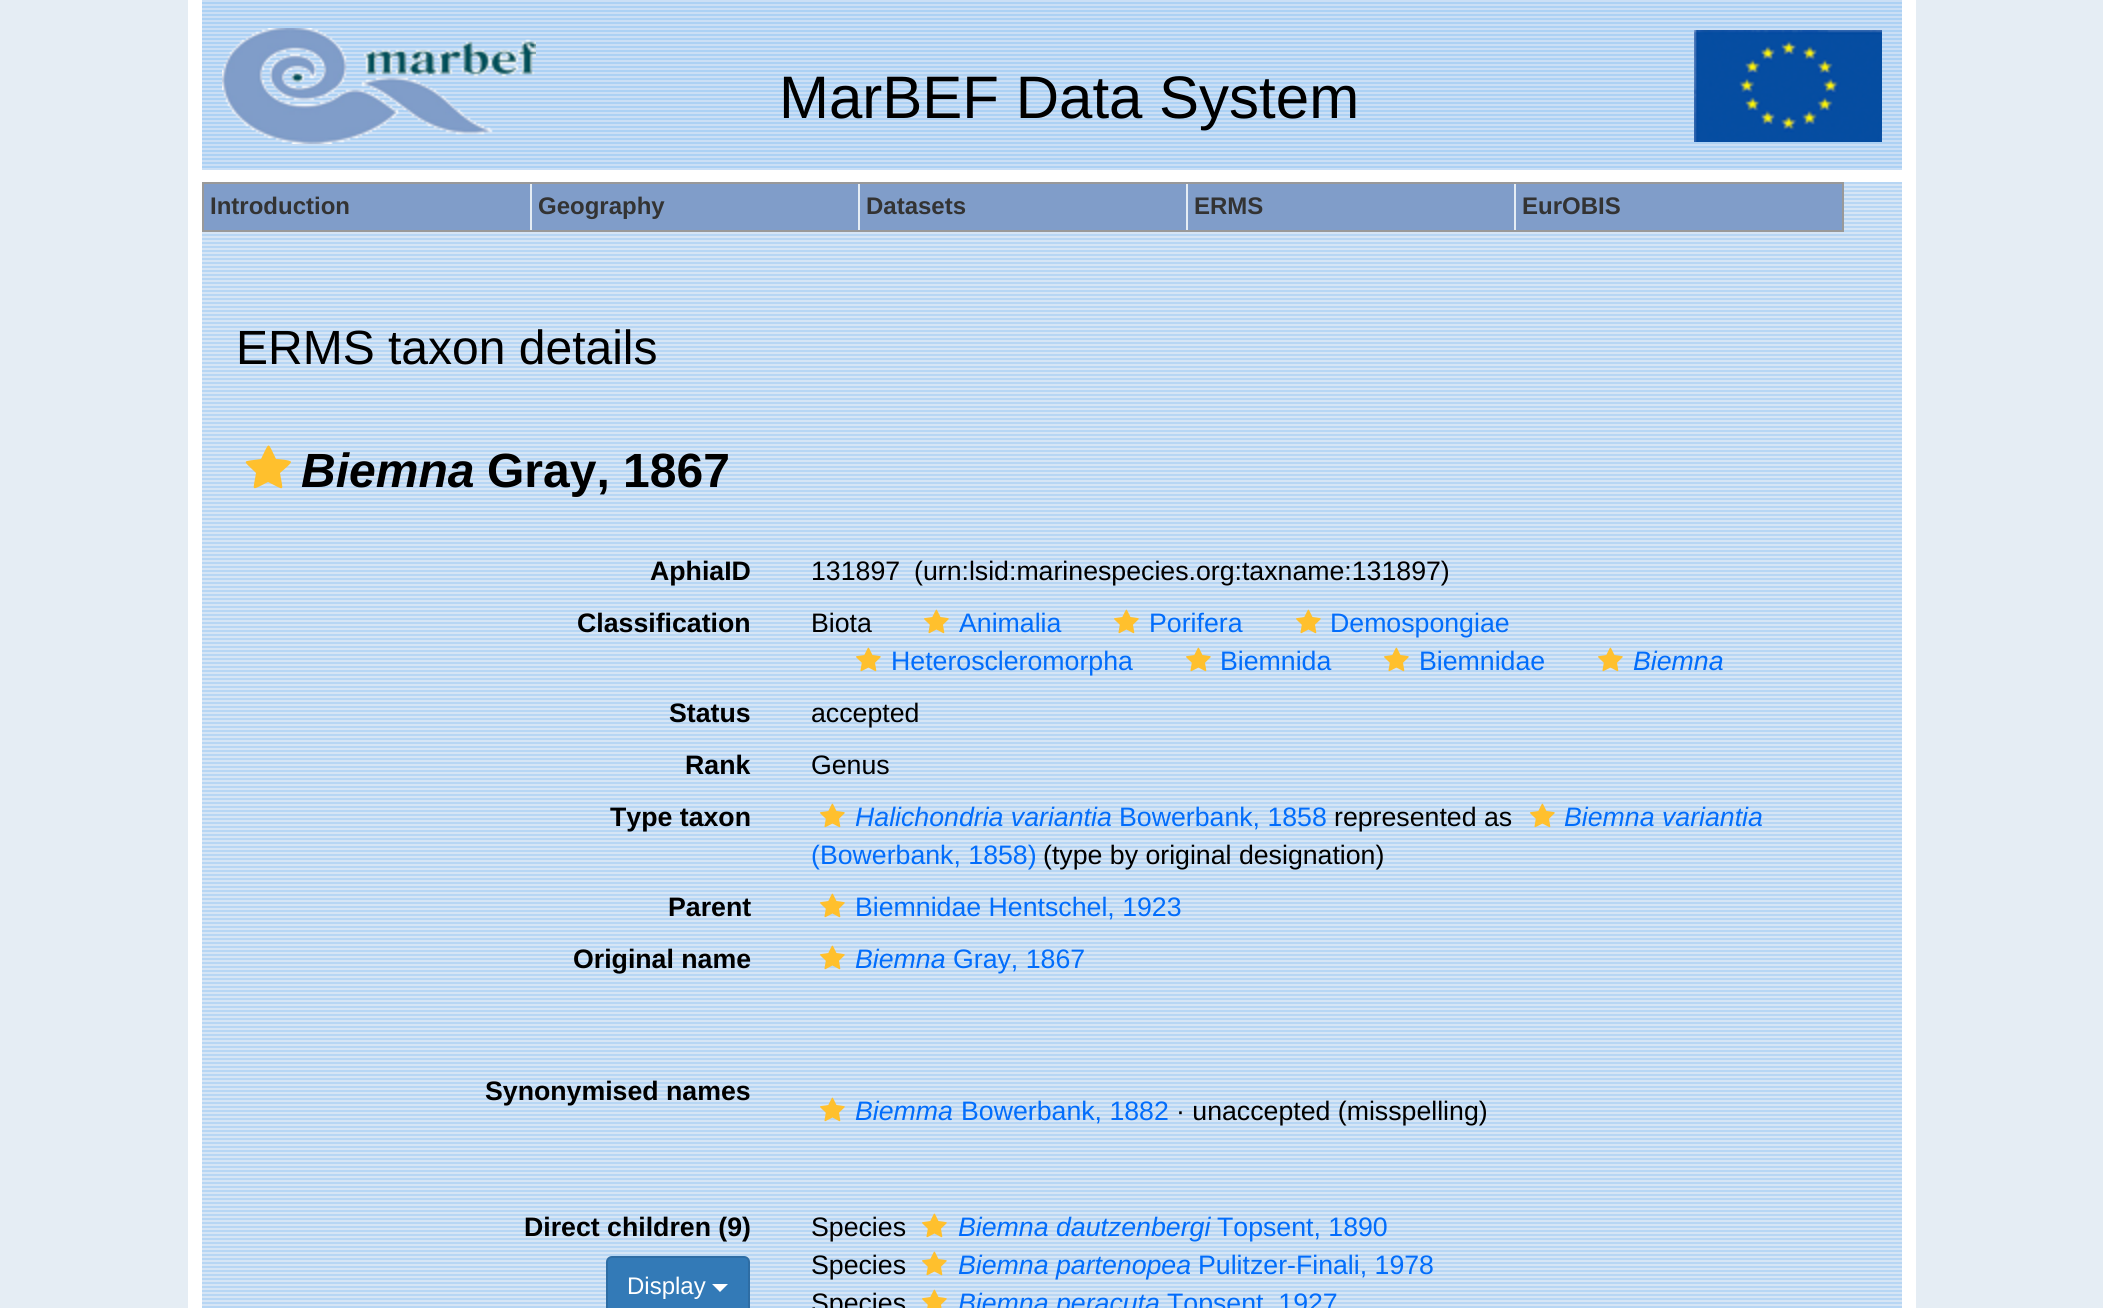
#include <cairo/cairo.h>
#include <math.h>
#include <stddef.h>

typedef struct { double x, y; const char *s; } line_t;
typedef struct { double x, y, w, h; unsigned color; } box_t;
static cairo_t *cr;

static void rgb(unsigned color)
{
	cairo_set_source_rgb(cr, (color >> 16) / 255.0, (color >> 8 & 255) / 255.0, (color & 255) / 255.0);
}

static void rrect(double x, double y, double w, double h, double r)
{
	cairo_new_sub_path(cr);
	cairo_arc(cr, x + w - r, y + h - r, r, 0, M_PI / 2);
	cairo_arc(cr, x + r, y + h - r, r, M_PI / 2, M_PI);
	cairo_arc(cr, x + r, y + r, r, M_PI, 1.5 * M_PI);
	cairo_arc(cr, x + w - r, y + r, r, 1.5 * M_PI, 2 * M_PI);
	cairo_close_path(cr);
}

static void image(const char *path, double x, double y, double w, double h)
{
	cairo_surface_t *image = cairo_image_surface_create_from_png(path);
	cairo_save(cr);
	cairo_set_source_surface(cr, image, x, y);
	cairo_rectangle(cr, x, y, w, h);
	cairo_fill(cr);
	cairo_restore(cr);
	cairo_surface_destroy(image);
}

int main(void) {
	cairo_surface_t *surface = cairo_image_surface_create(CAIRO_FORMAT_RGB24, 2103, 1308);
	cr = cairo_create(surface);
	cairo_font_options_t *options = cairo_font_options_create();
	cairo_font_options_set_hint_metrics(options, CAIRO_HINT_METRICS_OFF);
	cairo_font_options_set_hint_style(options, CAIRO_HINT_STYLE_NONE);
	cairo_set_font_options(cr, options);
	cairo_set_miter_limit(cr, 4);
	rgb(0xe5edf4);
	cairo_paint(cr);
	image("img/1.png", 202, 0, 1700, 1308);
	rgb(0xffffff);
	cairo_rectangle(cr, 188, 0, 14, 1308);
	cairo_fill(cr);
	image("img/2.png", 202, 0, 1700, 170);
	image("img/3.png", 222, 28, 314, 116);
	image("img/4.png", 1694, 30, 188, 112);
	cairo_rectangle(cr, 202, 170, 1700, 12);
	cairo_fill(cr);
	rgb(0x809dc9);
	cairo_rectangle(cr, 203, 183, 1640, 48);
	cairo_fill_preserve(cr);
	rgb(0x999999);
	cairo_stroke(cr);
	{
		static const box_t items[] = {
			{530, 184, 2, 46, 0xe5edf4},
			{858, 184, 2, 46, 0xe5edf4},
			{1186, 184, 2, 46, 0xe5edf4},
			{1514, 184, 2, 46, 0xe5edf4},
		};
		for (size_t i = 0; i < sizeof items / sizeof *items; i++) {
			rgb(items[i].color);
			cairo_rectangle(cr, items[i].x, items[i].y, items[i].w, items[i].h);
			cairo_fill(cr);
		}
	}
	rgb(0xffc02d);
	cairo_new_path(cr);
	cairo_move_to(cr, 291, 462);
	cairo_curve_to(cr, 291, 464, 282, 471, 280, 473);
	cairo_curve_to(cr, 283, 492, 286, 491, 268, 482);
	cairo_curve_to(cr, 250, 491, 253, 492, 256, 473);
	cairo_curve_to(cr, 242, 459, 241, 462, 261, 459);
	cairo_curve_to(cr, 270, 441, 267, 441, 276, 459);
	cairo_curve_to(cr, 278, 459, 291, 460, 291, 462);
	cairo_close_path(cr);
	cairo_fill(cr);
	image("img/5.png", 924, 609, 25, 25);
	image("img/5.png", 1114, 609, 25, 25);
	image("img/5.png", 1296, 609, 25, 25);
	image("img/6.png", 856, 647, 25, 25);
	image("img/6.png", 1186, 647, 25, 25);
	image("img/6.png", 1384, 647, 25, 25);
	image("img/6.png", 1598, 647, 25, 25);
	image("img/6.png", 1530, 803, 25, 25);
	image("img/6.png", 820, 803, 25, 25);
	image("img/5.png", 820, 893, 25, 25);
	image("img/5.png", 820, 945, 25, 25);
	image("img/5.png", 820, 1097, 25, 25);
	rgb(0x337ab7);
	rrect(607, 1257, 142, 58, 5);
	cairo_fill_preserve(cr);
	rgb(0x2e6da4);
	cairo_stroke(cr);
	rgb(0xffffff);
	cairo_new_path(cr);
	cairo_move_to(cr, 712, 1284);
	cairo_line_to(cr, 728, 1284);
	cairo_line_to(cr, 720, 1292);
	cairo_close_path(cr);
	cairo_fill(cr);
	image("img/5.png", 922, 1213, 25, 25);
	image("img/6.png", 922, 1251, 25, 25);
	image("img/7.png", 922, 1289, 25, 19);
	cairo_rectangle(cr, 1902, 0, 14, 1308);
	cairo_fill(cr);
	cairo_select_font_face(cr, "Liberation Sans", CAIRO_FONT_SLANT_NORMAL, CAIRO_FONT_WEIGHT_NORMAL);
	cairo_set_font_size(cr, 60);
	rgb(0x000000);
	cairo_move_to(cr, 779, 118);
	cairo_show_text(cr, "MarBEF Data System");
	cairo_select_font_face(cr, "Liberation Sans", CAIRO_FONT_SLANT_NORMAL, CAIRO_FONT_WEIGHT_BOLD);
	cairo_set_font_size(cr, 24);
	rgb(0x333333);
	{
		static const line_t items[] = {
			{210, 214, "Introduction"},
			{538, 214, "Geography"},
			{866, 214, "Datasets"},
			{1194, 214, "ERMS"},
			{1522, 214, "EurOBIS"},
		};
		for (size_t i = 0; i < sizeof items / sizeof *items; i++) {
			cairo_move_to(cr, items[i].x, items[i].y);
			cairo_show_text(cr, items[i].s);
		}
	}
	cairo_select_font_face(cr, "Liberation Sans", CAIRO_FONT_SLANT_NORMAL, CAIRO_FONT_WEIGHT_NORMAL);
	cairo_set_font_size(cr, 48);
	rgb(0x000000);
	cairo_move_to(cr, 236, 364);
	cairo_show_text(cr, "ERMS taxon details");
	cairo_select_font_face(cr, "Liberation Sans", CAIRO_FONT_SLANT_ITALIC, CAIRO_FONT_WEIGHT_BOLD);
	cairo_move_to(cr, 301, 487);
	cairo_show_text(cr, "Biemna");
	cairo_select_font_face(cr, "Liberation Sans", CAIRO_FONT_SLANT_NORMAL, CAIRO_FONT_WEIGHT_BOLD);
	cairo_move_to(cr, 487, 487);
	cairo_show_text(cr, "Gray, 1867");
	cairo_set_font_size(cr, 26.7);
	cairo_move_to(cr, 650, 580);
	cairo_show_text(cr, "AphiaID");
	cairo_select_font_face(cr, "Liberation Sans", CAIRO_FONT_SLANT_NORMAL, CAIRO_FONT_WEIGHT_NORMAL);
	cairo_move_to(cr, 811, 580);
	cairo_show_text(cr, "131897");
	cairo_move_to(cr, 914, 580);
	cairo_show_text(cr, "(urn:lsid:marinespecies.org:taxname:131897)");
	cairo_select_font_face(cr, "Liberation Sans", CAIRO_FONT_SLANT_NORMAL, CAIRO_FONT_WEIGHT_BOLD);
	cairo_move_to(cr, 577, 632);
	cairo_show_text(cr, "Classification");
	cairo_select_font_face(cr, "Liberation Sans", CAIRO_FONT_SLANT_NORMAL, CAIRO_FONT_WEIGHT_NORMAL);
	cairo_move_to(cr, 811, 632);
	cairo_show_text(cr, "Biota");
	rgb(0x026dfb);
	{
		static const line_t items[] = {
			{959, 632, "Animalia"},
			{1149, 632, "Porifera"},
			{1330, 632, "Demospongiae"},
			{891, 670, "Heteroscleromorpha"},
			{1220, 670, "Biemnida"},
			{1419, 670, "Biemnidae"},
		};
		for (size_t i = 0; i < sizeof items / sizeof *items; i++) {
			cairo_move_to(cr, items[i].x, items[i].y);
			cairo_show_text(cr, items[i].s);
		}
	}
	cairo_select_font_face(cr, "Liberation Sans", CAIRO_FONT_SLANT_ITALIC, CAIRO_FONT_WEIGHT_NORMAL);
	cairo_move_to(cr, 1633, 670);
	cairo_show_text(cr, "Biemna");
	cairo_select_font_face(cr, "Liberation Sans", CAIRO_FONT_SLANT_NORMAL, CAIRO_FONT_WEIGHT_BOLD);
	rgb(0x000000);
	cairo_move_to(cr, 669, 722);
	cairo_show_text(cr, "Status");
	cairo_select_font_face(cr, "Liberation Sans", CAIRO_FONT_SLANT_NORMAL, CAIRO_FONT_WEIGHT_NORMAL);
	cairo_move_to(cr, 811, 722);
	cairo_show_text(cr, "accepted");
	cairo_select_font_face(cr, "Liberation Sans", CAIRO_FONT_SLANT_NORMAL, CAIRO_FONT_WEIGHT_BOLD);
	cairo_move_to(cr, 685, 774);
	cairo_show_text(cr, "Rank");
	cairo_select_font_face(cr, "Liberation Sans", CAIRO_FONT_SLANT_NORMAL, CAIRO_FONT_WEIGHT_NORMAL);
	cairo_move_to(cr, 811, 774);
	cairo_show_text(cr, "Genus");
	cairo_select_font_face(cr, "Liberation Sans", CAIRO_FONT_SLANT_NORMAL, CAIRO_FONT_WEIGHT_BOLD);
	cairo_move_to(cr, 610, 826);
	cairo_show_text(cr, "Type taxon");
	cairo_select_font_face(cr, "Liberation Sans", CAIRO_FONT_SLANT_ITALIC, CAIRO_FONT_WEIGHT_NORMAL);
	rgb(0x026dfb);
	cairo_move_to(cr, 1564, 826);
	cairo_show_text(cr, "Biemna variantia");
	cairo_select_font_face(cr, "Liberation Sans", CAIRO_FONT_SLANT_NORMAL, CAIRO_FONT_WEIGHT_NORMAL);
	cairo_move_to(cr, 811, 864);
	cairo_show_text(cr, "(Bowerbank, 1858)");
	cairo_select_font_face(cr, "Liberation Sans", CAIRO_FONT_SLANT_ITALIC, CAIRO_FONT_WEIGHT_NORMAL);
	cairo_move_to(cr, 855, 826);
	cairo_show_text(cr, "Halichondria variantia");
	cairo_select_font_face(cr, "Liberation Sans", CAIRO_FONT_SLANT_NORMAL, CAIRO_FONT_WEIGHT_NORMAL);
	cairo_move_to(cr, 1119, 826);
	cairo_show_text(cr, "Bowerbank, 1858");
	rgb(0x000000);
	cairo_move_to(cr, 1334, 826);
	cairo_show_text(cr, "represented as");
	cairo_move_to(cr, 1043, 864);
	cairo_show_text(cr, "(type by original designation)");
	cairo_select_font_face(cr, "Liberation Sans", CAIRO_FONT_SLANT_NORMAL, CAIRO_FONT_WEIGHT_BOLD);
	cairo_move_to(cr, 668, 916);
	cairo_show_text(cr, "Parent");
	cairo_select_font_face(cr, "Liberation Sans", CAIRO_FONT_SLANT_NORMAL, CAIRO_FONT_WEIGHT_NORMAL);
	rgb(0x026dfb);
	cairo_move_to(cr, 855, 916);
	cairo_show_text(cr, "Biemnidae Hentschel, 1923");
	cairo_select_font_face(cr, "Liberation Sans", CAIRO_FONT_SLANT_NORMAL, CAIRO_FONT_WEIGHT_BOLD);
	rgb(0x000000);
	cairo_move_to(cr, 573, 968);
	cairo_show_text(cr, "Original name");
	cairo_select_font_face(cr, "Liberation Sans", CAIRO_FONT_SLANT_ITALIC, CAIRO_FONT_WEIGHT_NORMAL);
	rgb(0x026dfb);
	cairo_move_to(cr, 855, 968);
	cairo_show_text(cr, "Biemna");
	cairo_select_font_face(cr, "Liberation Sans", CAIRO_FONT_SLANT_NORMAL, CAIRO_FONT_WEIGHT_NORMAL);
	cairo_move_to(cr, 953, 968);
	cairo_show_text(cr, "Gray, 1867");
	cairo_select_font_face(cr, "Liberation Sans", CAIRO_FONT_SLANT_NORMAL, CAIRO_FONT_WEIGHT_BOLD);
	rgb(0x000000);
	cairo_move_to(cr, 485, 1100);
	cairo_show_text(cr, "Synonymised names");
	cairo_select_font_face(cr, "Liberation Sans", CAIRO_FONT_SLANT_ITALIC, CAIRO_FONT_WEIGHT_NORMAL);
	rgb(0x026dfb);
	cairo_move_to(cr, 855, 1120);
	cairo_show_text(cr, "Biemma");
	cairo_select_font_face(cr, "Liberation Sans", CAIRO_FONT_SLANT_NORMAL, CAIRO_FONT_WEIGHT_NORMAL);
	cairo_move_to(cr, 961, 1120);
	cairo_show_text(cr, "Bowerbank, 1882");
	rgb(0x000000);
	cairo_move_to(cr, 1176, 1120);
	cairo_show_text(cr, "· unaccepted (misspelling)");
	cairo_select_font_face(cr, "Liberation Sans", CAIRO_FONT_SLANT_NORMAL, CAIRO_FONT_WEIGHT_BOLD);
	cairo_move_to(cr, 524, 1236);
	cairo_show_text(cr, "Direct children (9)");
	cairo_select_font_face(cr, "Liberation Sans", CAIRO_FONT_SLANT_NORMAL, CAIRO_FONT_WEIGHT_NORMAL);
	cairo_set_font_size(cr, 24);
	rgb(0xffffff);
	cairo_move_to(cr, 627, 1294);
	cairo_show_text(cr, "Display");
	cairo_set_font_size(cr, 26.7);
	rgb(0x000000);
	cairo_move_to(cr, 811, 1236);
	cairo_show_text(cr, "Species");
	cairo_select_font_face(cr, "Liberation Sans", CAIRO_FONT_SLANT_ITALIC, CAIRO_FONT_WEIGHT_NORMAL);
	rgb(0x026dfb);
	cairo_move_to(cr, 958, 1236);
	cairo_show_text(cr, "Biemna dautzenbergi");
	cairo_select_font_face(cr, "Liberation Sans", CAIRO_FONT_SLANT_NORMAL, CAIRO_FONT_WEIGHT_NORMAL);
	cairo_move_to(cr, 1217, 1236);
	cairo_show_text(cr, "Topsent, 1890");
	rgb(0x000000);
	cairo_move_to(cr, 811, 1274);
	cairo_show_text(cr, "Species");
	cairo_select_font_face(cr, "Liberation Sans", CAIRO_FONT_SLANT_ITALIC, CAIRO_FONT_WEIGHT_NORMAL);
	rgb(0x026dfb);
	cairo_move_to(cr, 958, 1274);
	cairo_show_text(cr, "Biemna partenopea");
	cairo_select_font_face(cr, "Liberation Sans", CAIRO_FONT_SLANT_NORMAL, CAIRO_FONT_WEIGHT_NORMAL);
	cairo_move_to(cr, 1198, 1274);
	cairo_show_text(cr, "Pulitzer-Finali, 1978");
	rgb(0x000000);
	cairo_move_to(cr, 811, 1312);
	cairo_show_text(cr, "Species");
	cairo_select_font_face(cr, "Liberation Sans", CAIRO_FONT_SLANT_ITALIC, CAIRO_FONT_WEIGHT_NORMAL);
	rgb(0x026dfb);
	cairo_move_to(cr, 958, 1312);
	cairo_show_text(cr, "Biemna peracuta");
	cairo_select_font_face(cr, "Liberation Sans", CAIRO_FONT_SLANT_NORMAL, CAIRO_FONT_WEIGHT_NORMAL);
	cairo_move_to(cr, 1167, 1312);
	cairo_show_text(cr, "Topsent, 1927");
	cairo_surface_write_to_png(surface, "page.png");
	cairo_font_options_destroy(options);
	cairo_destroy(cr);
	cairo_surface_destroy(surface);
	return 0;
}
